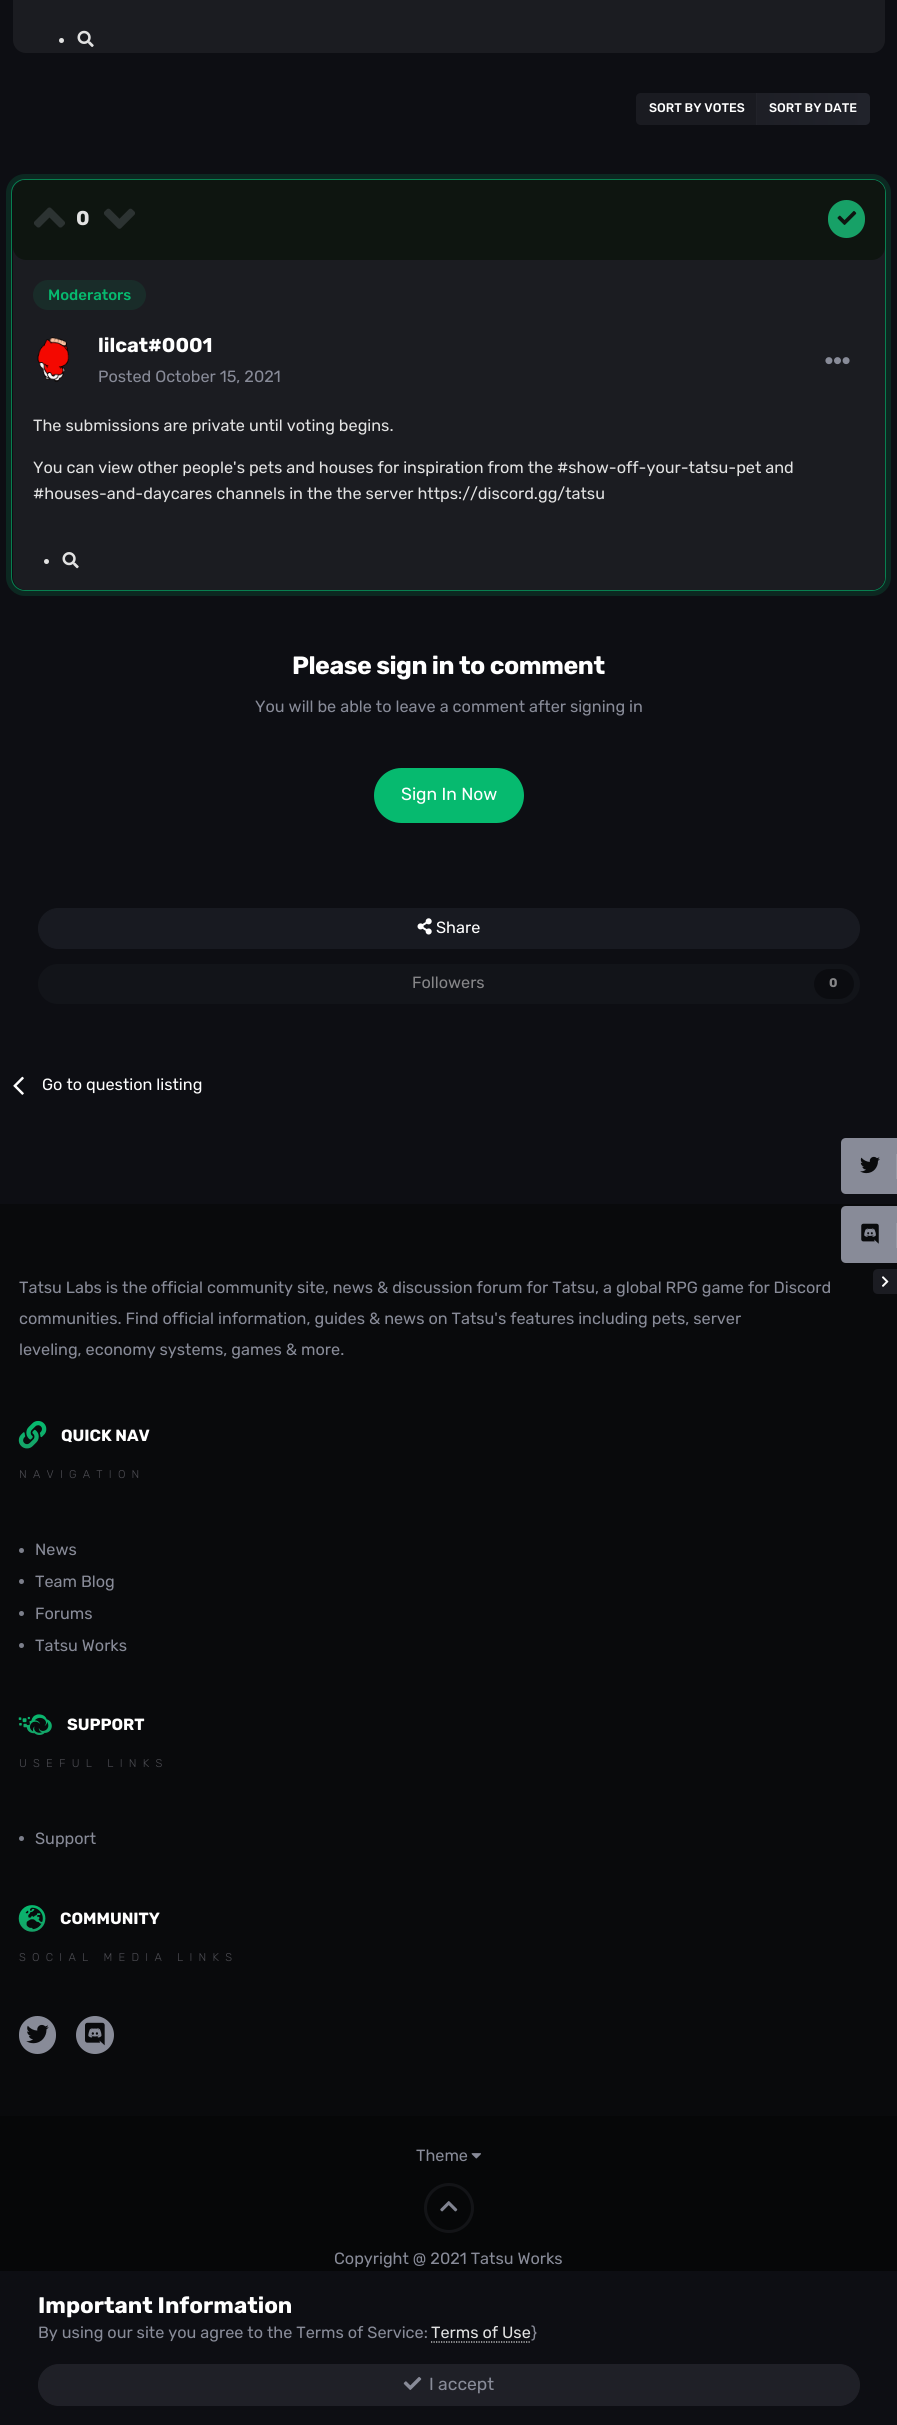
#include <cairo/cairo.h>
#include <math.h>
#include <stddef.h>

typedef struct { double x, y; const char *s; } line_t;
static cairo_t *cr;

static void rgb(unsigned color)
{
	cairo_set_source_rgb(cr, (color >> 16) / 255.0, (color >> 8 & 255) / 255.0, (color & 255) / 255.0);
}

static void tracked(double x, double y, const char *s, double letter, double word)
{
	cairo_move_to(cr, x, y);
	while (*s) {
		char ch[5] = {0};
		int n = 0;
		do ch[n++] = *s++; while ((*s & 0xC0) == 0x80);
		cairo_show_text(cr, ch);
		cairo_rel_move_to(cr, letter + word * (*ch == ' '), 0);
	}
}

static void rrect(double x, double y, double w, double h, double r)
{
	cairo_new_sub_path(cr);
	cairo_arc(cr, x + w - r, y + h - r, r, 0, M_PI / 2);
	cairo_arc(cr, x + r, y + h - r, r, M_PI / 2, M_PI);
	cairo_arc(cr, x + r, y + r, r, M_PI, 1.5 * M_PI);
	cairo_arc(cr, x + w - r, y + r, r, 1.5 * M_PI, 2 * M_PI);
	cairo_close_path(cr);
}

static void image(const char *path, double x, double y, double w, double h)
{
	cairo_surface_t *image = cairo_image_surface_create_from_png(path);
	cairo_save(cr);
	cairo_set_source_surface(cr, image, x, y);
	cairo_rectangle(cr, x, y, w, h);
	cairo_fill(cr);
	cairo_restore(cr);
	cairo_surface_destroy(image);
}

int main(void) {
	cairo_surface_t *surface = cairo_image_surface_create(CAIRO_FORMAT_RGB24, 897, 2425);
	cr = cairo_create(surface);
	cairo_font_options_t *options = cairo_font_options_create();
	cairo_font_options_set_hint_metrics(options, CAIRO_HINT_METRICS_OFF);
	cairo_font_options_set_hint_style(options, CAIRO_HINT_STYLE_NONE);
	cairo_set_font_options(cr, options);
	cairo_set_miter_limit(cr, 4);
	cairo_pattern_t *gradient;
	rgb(0x0d0e13);
	cairo_paint(cr);
	rgb(0x1b1c21);
	rrect(13, -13, 872, 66, 13);
	cairo_fill(cr);
	rgb(0xe2e2e2);
	cairo_arc(cr, 61.5, 40.5, 2.5, 0, 2 * M_PI);
	cairo_fill(cr);
	image("img/1.png", 77, 30, 17, 17);
	rgb(0x1a1b21);
	cairo_new_path(cr);
	cairo_move_to(cr, 641, 93);
	cairo_line_to(cr, 758, 93);
	cairo_line_to(cr, 758, 125);
	cairo_line_to(cr, 641, 125);
	cairo_curve_to(cr, 638, 125, 636, 123, 636, 120);
	cairo_line_to(cr, 636, 98);
	cairo_curve_to(cr, 636, 95, 638, 93, 641, 93);
	cairo_close_path(cr);
	cairo_fill(cr);
	gradient = cairo_pattern_create_linear(758, 109, 533, 109);
	cairo_pattern_add_color_stop_rgba(gradient, 0, 0.118, 0.122, 0.149, 1);
	cairo_pattern_add_color_stop_rgba(gradient, 0.5, 0.129, 0.137, 0.169, 1);
	cairo_pattern_add_color_stop_rgba(gradient, 1, 0.118, 0.122, 0.149, 1);
	cairo_set_source(cr, gradient);
	cairo_pattern_destroy(gradient);
	cairo_rectangle(cr, 757, 93, 1, 32);
	cairo_fill(cr);
	gradient = cairo_pattern_create_linear(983, 109, 758, 109);
	cairo_pattern_add_color_stop_rgba(gradient, 0, 0.118, 0.122, 0.149, 1);
	cairo_pattern_add_color_stop_rgba(gradient, 0.5, 0.129, 0.137, 0.169, 1);
	cairo_pattern_add_color_stop_rgba(gradient, 1, 0.118, 0.122, 0.149, 1);
	cairo_set_source(cr, gradient);
	cairo_pattern_destroy(gradient);
	cairo_new_path(cr);
	cairo_move_to(cr, 758, 93);
	cairo_line_to(cr, 865, 93);
	cairo_curve_to(cr, 868, 93, 870, 95, 870, 98);
	cairo_line_to(cr, 870, 120);
	cairo_curve_to(cr, 870, 123, 868, 125, 865, 125);
	cairo_line_to(cr, 758, 125);
	cairo_close_path(cr);
	cairo_fill(cr);
	rgb(0x212229);
	cairo_rectangle(cr, 756, 93, 1, 32);
	cairo_fill(cr);
	rrect(9, 177, 879, 416, 16);
	rgb(0x0c2821);
	cairo_set_line_width(cr, 6);
	cairo_stroke(cr);
	rrect(11.5, 179.5, 874, 411, 13.5);
	cairo_set_source_rgba(cr, 0.024, 0.729, 0.435, 0.6);
	cairo_set_line_width(cr, 1);
	cairo_stroke(cr);
	rgb(0x1b1c21);
	rrect(13, 180, 872, 410, 13);
	cairo_fill(cr);
	rgb(0x0e1510);
	rrect(13, 180, 872, 80, 13);
	cairo_fill(cr);
	image("img/2.png", 34, 207, 31, 21);
	image("img/3.png", 104, 208, 31, 21);
	rgb(0x17a167);
	rrect(828, 200, 37, 38, 18.5);
	cairo_fill(cr);
	image("img/4.png", 837, 211, 20, 14);
	rgb(0x192c29);
	rrect(33, 280, 113, 30, 15);
	cairo_fill(cr);
	image("img/5.png", 37, 337, 32, 45);
	image("img/6.png", 825, 357, 25, 8);
	rgb(0xe2e2e2);
	cairo_arc(cr, 46.5, 561.5, 2.5, 0, 2 * M_PI);
	cairo_fill(cr);
	image("img/7.png", 62, 552, 17, 17);
	rgb(0x06ba6f);
	rrect(374, 768, 150, 55, 27.5);
	cairo_fill(cr);
	rgb(0x181a21);
	rrect(38.5, 908.5, 821, 40, 20);
	cairo_fill_preserve(cr);
	cairo_stroke(cr);
	image("img/8.png", 417, 918, 15, 17);
	rgb(0x121419);
	rrect(38, 964, 822, 40, 20);
	cairo_fill(cr);
	rgb(0x0b0c10);
	rrect(814, 969, 40, 30, 15);
	cairo_fill(cr);
	image("img/9.png", 13, 1076, 11, 19);
	rgb(0x888b98);
	cairo_new_path(cr);
	cairo_move_to(cr, 846, 1138);
	cairo_line_to(cr, 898, 1138);
	cairo_line_to(cr, 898, 1194);
	cairo_line_to(cr, 846, 1194);
	cairo_curve_to(cr, 843, 1194, 841, 1192, 841, 1189);
	cairo_line_to(cr, 841, 1143);
	cairo_curve_to(cr, 841, 1140, 843, 1138, 846, 1138);
	cairo_close_path(cr);
	cairo_fill(cr);
	image("img/10.png", 860, 1156, 20, 18);
	rgb(0x999ba6);
	cairo_rectangle(cr, 896, 1154, 1, 25);
	cairo_fill(cr);
	rgb(0x090a0c);
	cairo_rectangle(cr, 0, 1204, 897, 912);
	cairo_fill(cr);
	rgb(0x888b98);
	cairo_new_path(cr);
	cairo_move_to(cr, 846, 1206);
	cairo_line_to(cr, 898, 1206);
	cairo_line_to(cr, 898, 1263);
	cairo_line_to(cr, 846, 1263);
	cairo_curve_to(cr, 843, 1263, 841, 1261, 841, 1258);
	cairo_line_to(cr, 841, 1211);
	cairo_curve_to(cr, 841, 1208, 843, 1206, 846, 1206);
	cairo_close_path(cr);
	cairo_fill(cr);
	image("img/11.png", 861, 1223, 18, 21);
	rgb(0x999ba6);
	cairo_rectangle(cr, 896, 1223, 1, 25);
	cairo_fill(cr);
	rgb(0x1b1c22);
	cairo_new_path(cr);
	cairo_move_to(cr, 878, 1269);
	cairo_line_to(cr, 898, 1269);
	cairo_line_to(cr, 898, 1294);
	cairo_line_to(cr, 878, 1294);
	cairo_curve_to(cr, 875, 1294, 873, 1292, 873, 1289);
	cairo_line_to(cr, 873, 1274);
	cairo_curve_to(cr, 873, 1271, 875, 1269, 878, 1269);
	cairo_close_path(cr);
	cairo_fill(cr);
	image("img/12.png", 882, 1276, 7, 11);
	rgb(0x060708);
	cairo_rectangle(cr, 0, 2116, 897, 155);
	cairo_fill(cr);
	image("img/13.png", 18, 1420, 29, 29);
	rgb(0x7c7f8b);
	cairo_arc(cr, 21.5, 1550.5, 2.5, 0, 2 * M_PI);
	cairo_fill(cr);
	cairo_arc(cr, 21.5, 1581.5, 2.5, 0, 2 * M_PI);
	cairo_fill(cr);
	cairo_arc(cr, 21.5, 1613.5, 2.5, 0, 2 * M_PI);
	cairo_fill(cr);
	cairo_arc(cr, 21.5, 1645.5, 2.5, 0, 2 * M_PI);
	cairo_fill(cr);
	image("img/14.png", 18, 1714, 34, 21);
	cairo_arc(cr, 21.5, 1838.5, 2.5, 0, 2 * M_PI);
	cairo_fill(cr);
	image("img/15.png", 18, 1905, 28, 27);
	rgb(0x888b98);
	rrect(19, 2016, 37, 38, 18.5);
	cairo_fill(cr);
	image("img/16.png", 26, 2024, 23, 20);
	cairo_arc(cr, 95, 2035, 19, 0, 2 * M_PI);
	cairo_fill(cr);
	image("img/17.png", 85, 2022, 20, 24);
	image("img/18.png", 471, 2153, 10, 6);
	cairo_arc(cr, 449, 2208, 23.5, 0, 2 * M_PI);
	rgb(0x131417);
	cairo_set_line_width(cr, 3);
	cairo_stroke(cr);
	image("img/19.png", 440, 2201, 18, 11);
	cairo_new_path(cr);
	cairo_move_to(cr, 431, 2342);
	cairo_line_to(cr, 531, 2342);
	rgb(0xe2e2e2);
	cairo_set_line_width(cr, 1.2);
	cairo_set_dash(cr, (double[]){1.25, 1.25}, 2, 0);
	cairo_stroke(cr);
	rgb(0x1f2027);
	rrect(38.5, 2364.5, 821, 41, 20.5);
	cairo_fill_preserve(cr);
	cairo_set_line_width(cr, 1);
	cairo_set_dash(cr, NULL, 0, 0);
	cairo_stroke(cr);
	image("img/20.png", 403, 2377, 19, 13);
	cairo_select_font_face(cr, "Rubik Medium", CAIRO_FONT_SLANT_NORMAL, CAIRO_FONT_WEIGHT_NORMAL);
	cairo_set_font_size(cr, 12.5);
	rgb(0xffffff);
	cairo_move_to(cr, 649, 112);
	cairo_show_text(cr, "SORT BY VOTES");
	cairo_move_to(cr, 769, 112);
	cairo_show_text(cr, "SORT BY DATE");
	cairo_select_font_face(cr, "Rubik", CAIRO_FONT_SLANT_NORMAL, CAIRO_FONT_WEIGHT_BOLD);
	cairo_set_font_size(cr, 20);
	rgb(0xe2e2e2);
	cairo_move_to(cr, 76, 225);
	cairo_show_text(cr, "0");
	cairo_select_font_face(cr, "Rubik Medium", CAIRO_FONT_SLANT_NORMAL, CAIRO_FONT_WEIGHT_NORMAL);
	cairo_set_font_size(cr, 15);
	rgb(0x06ba6f);
	cairo_move_to(cr, 48, 300);
	cairo_show_text(cr, "Moderators");
	cairo_select_font_face(cr, "Rubik", CAIRO_FONT_SLANT_NORMAL, CAIRO_FONT_WEIGHT_BOLD);
	cairo_set_font_size(cr, 20);
	rgb(0xffffff);
	cairo_move_to(cr, 98, 352);
	cairo_show_text(cr, "lilcat#0001");
	cairo_select_font_face(cr, "Rubik", CAIRO_FONT_SLANT_NORMAL, CAIRO_FONT_WEIGHT_NORMAL);
	cairo_set_font_size(cr, 16.25);
	rgb(0x888b98);
	cairo_move_to(cr, 98, 382);
	cairo_show_text(cr, "Posted October 15, 2021");
	rgb(0xe2e2e2);
	{
		static const line_t items[] = {
			{33, 431, "The submissions are private until voting begins."},
			{33, 473, "You can view other people's pets and houses for inspiration from the #show-off-your-tatsu-pet and"},
			{33, 499, "#houses-and-daycares channels in the the server https://discord.gg/tatsu"},
		};
		for (size_t i = 0; i < sizeof items / sizeof *items; i++) {
			cairo_move_to(cr, items[i].x, items[i].y);
			cairo_show_text(cr, items[i].s);
		}
	}
	cairo_select_font_face(cr, "Rubik", CAIRO_FONT_SLANT_NORMAL, CAIRO_FONT_WEIGHT_BOLD);
	cairo_set_font_size(cr, 25);
	rgb(0xffffff);
	tracked(292, 674, "Please sign in to comment", -0.5, 0);
	cairo_select_font_face(cr, "Rubik", CAIRO_FONT_SLANT_NORMAL, CAIRO_FONT_WEIGHT_NORMAL);
	cairo_set_font_size(cr, 16.25);
	rgb(0x888b98);
	cairo_move_to(cr, 255, 712);
	cairo_show_text(cr, "You will be able to leave a comment after signing in");
	cairo_set_font_size(cr, 17.5);
	rgb(0xffffff);
	cairo_move_to(cr, 401, 800);
	cairo_show_text(cr, "Sign In Now");
	cairo_set_font_size(cr, 16.25);
	cairo_move_to(cr, 436, 933);
	cairo_show_text(cr, "Share");
	rgb(0x868688);
	cairo_move_to(cr, 412, 988);
	cairo_show_text(cr, "Followers");
	cairo_select_font_face(cr, "Rubik", CAIRO_FONT_SLANT_NORMAL, CAIRO_FONT_WEIGHT_BOLD);
	cairo_set_font_size(cr, 12.5);
	cairo_move_to(cr, 829, 987);
	cairo_show_text(cr, "0");
	cairo_select_font_face(cr, "Rubik", CAIRO_FONT_SLANT_NORMAL, CAIRO_FONT_WEIGHT_NORMAL);
	cairo_set_font_size(cr, 16.25);
	rgb(0xffffff);
	cairo_move_to(cr, 42, 1090);
	cairo_show_text(cr, "Go to question listing");
	rgb(0x888b98);
	{
		static const line_t items[] = {
			{19, 1293, "Tatsu Labs is the official community site, news & discussion forum for Tatsu, a global RPG game for Discord"},
			{19, 1324, "communities. Find official information, guides & news on Tatsu's features including pets, server"},
			{19, 1355, "leveling, economy systems, games & more."},
		};
		for (size_t i = 0; i < sizeof items / sizeof *items; i++) {
			cairo_move_to(cr, items[i].x, items[i].y);
			cairo_show_text(cr, items[i].s);
		}
	}
	cairo_select_font_face(cr, "Rubik", CAIRO_FONT_SLANT_NORMAL, CAIRO_FONT_WEIGHT_BOLD);
	rgb(0xffffff);
	cairo_move_to(cr, 61, 1441);
	cairo_show_text(cr, "QUICK NAV");
	cairo_select_font_face(cr, "Rubik Light", CAIRO_FONT_SLANT_NORMAL, CAIRO_FONT_WEIGHT_NORMAL);
	cairo_set_font_size(cr, 11.25);
	rgb(0x4c4c52);
	tracked(19, 1478, "NAVIGATION", 6.25, 0);
	cairo_select_font_face(cr, "Rubik", CAIRO_FONT_SLANT_NORMAL, CAIRO_FONT_WEIGHT_NORMAL);
	cairo_set_font_size(cr, 16.25);
	rgb(0x888b98);
	{
		static const line_t items[] = {
			{35, 1555, "News"},
			{35, 1587, "Team Blog"},
			{35, 1619, "Forums"},
			{35, 1651, "Tatsu Works"},
		};
		for (size_t i = 0; i < sizeof items / sizeof *items; i++) {
			cairo_move_to(cr, items[i].x, items[i].y);
			cairo_show_text(cr, items[i].s);
		}
	}
	cairo_select_font_face(cr, "Rubik", CAIRO_FONT_SLANT_NORMAL, CAIRO_FONT_WEIGHT_BOLD);
	rgb(0xffffff);
	cairo_move_to(cr, 67, 1730);
	cairo_show_text(cr, "SUPPORT");
	cairo_select_font_face(cr, "Rubik Light", CAIRO_FONT_SLANT_NORMAL, CAIRO_FONT_WEIGHT_NORMAL);
	cairo_set_font_size(cr, 11.25);
	rgb(0x4c4c52);
	tracked(19, 1767, "USEFUL LINKS", 6.25, 0);
	cairo_select_font_face(cr, "Rubik", CAIRO_FONT_SLANT_NORMAL, CAIRO_FONT_WEIGHT_NORMAL);
	cairo_set_font_size(cr, 16.25);
	rgb(0x888b98);
	cairo_move_to(cr, 35, 1844);
	cairo_show_text(cr, "Support");
	cairo_select_font_face(cr, "Rubik", CAIRO_FONT_SLANT_NORMAL, CAIRO_FONT_WEIGHT_BOLD);
	rgb(0xffffff);
	cairo_move_to(cr, 60, 1924);
	cairo_show_text(cr, "COMMUNITY");
	cairo_select_font_face(cr, "Rubik Light", CAIRO_FONT_SLANT_NORMAL, CAIRO_FONT_WEIGHT_NORMAL);
	cairo_set_font_size(cr, 11.25);
	rgb(0x4c4c52);
	tracked(19, 1961, "SOCIAL MEDIA LINKS", 6.25, 0);
	cairo_select_font_face(cr, "Rubik", CAIRO_FONT_SLANT_NORMAL, CAIRO_FONT_WEIGHT_NORMAL);
	cairo_set_font_size(cr, 16.25);
	rgb(0x888b98);
	cairo_move_to(cr, 416, 2161);
	cairo_show_text(cr, "Theme");
	cairo_move_to(cr, 334, 2264);
	cairo_show_text(cr, "Copyright @ 2021 Tatsu Works");
	cairo_select_font_face(cr, "Rubik", CAIRO_FONT_SLANT_NORMAL, CAIRO_FONT_WEIGHT_BOLD);
	cairo_set_font_size(cr, 22.5);
	rgb(0xffffff);
	cairo_move_to(cr, 38, 2313);
	cairo_show_text(cr, "Important Information");
	cairo_select_font_face(cr, "Rubik", CAIRO_FONT_SLANT_NORMAL, CAIRO_FONT_WEIGHT_NORMAL);
	cairo_set_font_size(cr, 16.25);
	rgb(0x888b98);
	cairo_move_to(cr, 38, 2338);
	cairo_show_text(cr, "By using our site you agree to the Terms of Service:");
	rgb(0xe2e2e2);
	cairo_move_to(cr, 431, 2338);
	cairo_show_text(cr, "Terms of Use");
	rgb(0x888b98);
	cairo_move_to(cr, 531, 2338);
	cairo_show_text(cr, "}");
	cairo_set_font_size(cr, 17.5);
	cairo_move_to(cr, 429, 2390);
	cairo_show_text(cr, "I accept");
	cairo_surface_write_to_png(surface, "page.png");
	cairo_font_options_destroy(options);
	cairo_destroy(cr);
	cairo_surface_destroy(surface);
	return 0;
}
